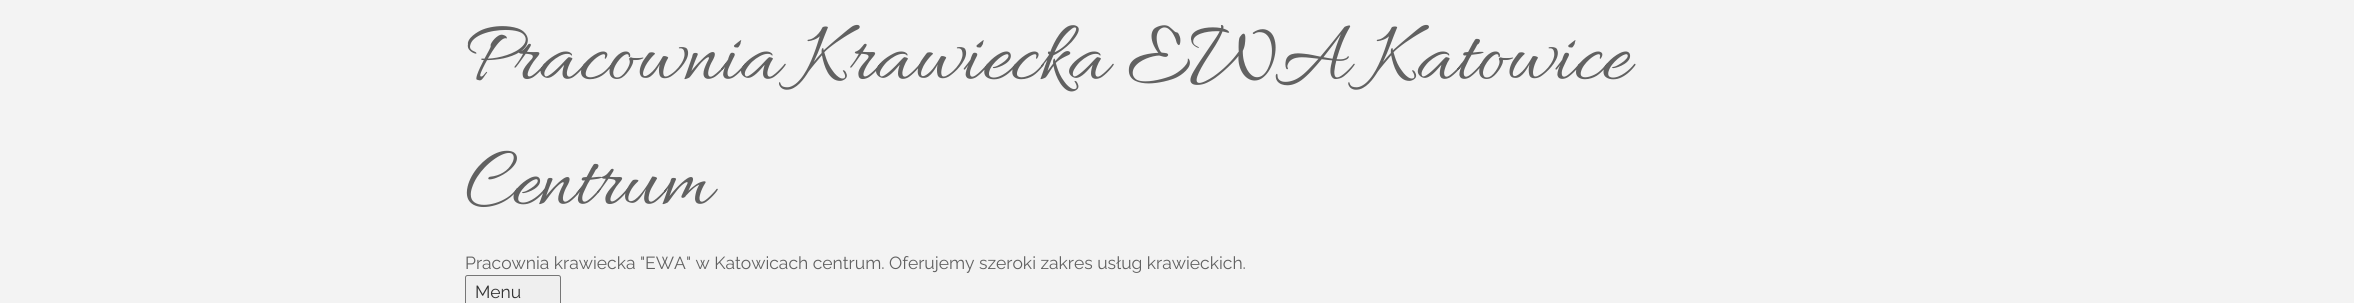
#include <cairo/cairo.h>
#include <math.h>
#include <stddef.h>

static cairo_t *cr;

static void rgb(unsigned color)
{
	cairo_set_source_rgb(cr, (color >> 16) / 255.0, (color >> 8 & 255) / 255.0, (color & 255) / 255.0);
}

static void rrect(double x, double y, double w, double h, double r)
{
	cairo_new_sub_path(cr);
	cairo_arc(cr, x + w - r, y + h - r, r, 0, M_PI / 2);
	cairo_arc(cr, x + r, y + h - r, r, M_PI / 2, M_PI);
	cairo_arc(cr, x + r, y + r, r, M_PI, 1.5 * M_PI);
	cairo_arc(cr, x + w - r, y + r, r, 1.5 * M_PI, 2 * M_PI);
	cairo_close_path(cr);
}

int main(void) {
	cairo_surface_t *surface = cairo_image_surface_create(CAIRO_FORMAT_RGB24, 2354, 303);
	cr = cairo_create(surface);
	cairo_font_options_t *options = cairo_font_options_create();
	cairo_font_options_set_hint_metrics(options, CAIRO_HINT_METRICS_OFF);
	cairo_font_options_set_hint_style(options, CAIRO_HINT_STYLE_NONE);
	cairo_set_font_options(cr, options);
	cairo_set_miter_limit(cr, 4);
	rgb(0xf3f3f3);
	cairo_paint(cr);
	rgb(0xefefef);
	rrect(465.5, 275.5, 95, 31, 2);
	cairo_fill_preserve(cr);
	rgb(0x767676);
	cairo_set_line_width(cr, 1);
	cairo_stroke(cr);
	cairo_select_font_face(cr, "Allura", CAIRO_FONT_SLANT_NORMAL, CAIRO_FONT_WEIGHT_NORMAL);
	cairo_set_font_size(cr, 87.5);
	rgb(0x616161);
	cairo_move_to(cr, 465, 78);
	cairo_show_text(cr, "Pracownia Krawiecka EWA Katowice");
	cairo_move_to(cr, 465, 203);
	cairo_show_text(cr, "Centrum");
	cairo_select_font_face(cr, "Raleway", CAIRO_FONT_SLANT_NORMAL, CAIRO_FONT_WEIGHT_NORMAL);
	cairo_set_font_size(cr, 17.5);
	cairo_move_to(cr, 465, 269);
	cairo_show_text(cr, "Pracownia krawiecka \"EWA\" w Katowicach centrum. Oferujemy szeroki zakres usług krawieckich.");
	rgb(0x333333);
	cairo_move_to(cr, 475, 298);
	cairo_show_text(cr, "Menu");
	cairo_surface_write_to_png(surface, "page.png");
	cairo_font_options_destroy(options);
	cairo_destroy(cr);
	cairo_surface_destroy(surface);
	return 0;
}
